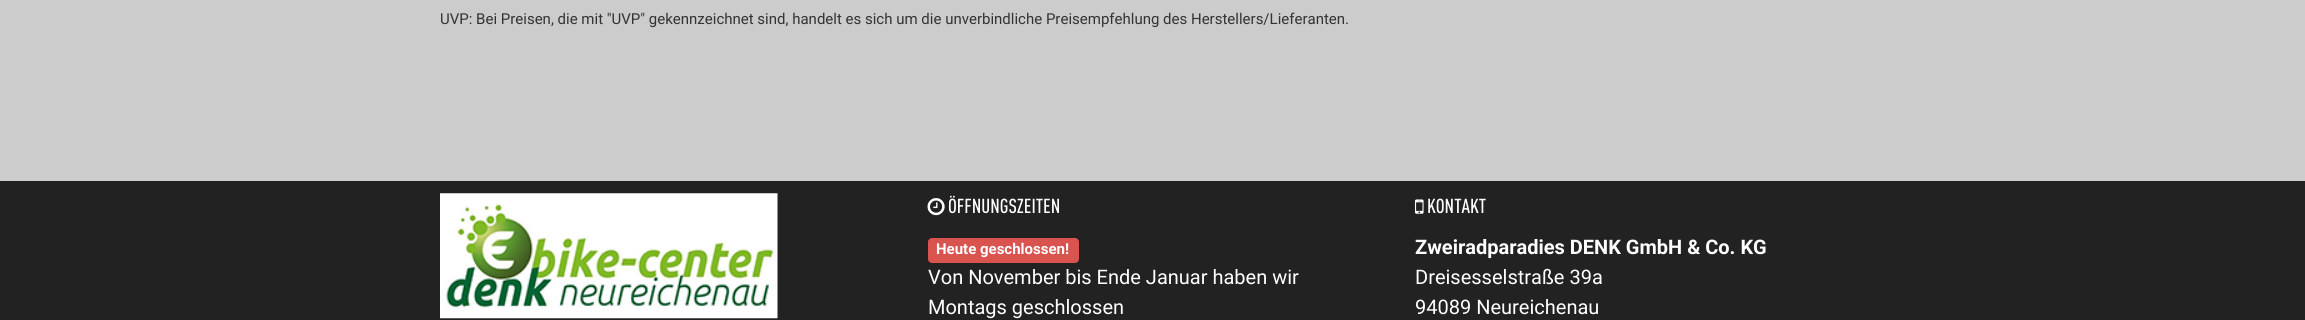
#include <cairo/cairo.h>
#include <math.h>
#include <stddef.h>

static cairo_t *cr;

static void rgb(unsigned color)
{
	cairo_set_source_rgb(cr, (color >> 16) / 255.0, (color >> 8 & 255) / 255.0, (color & 255) / 255.0);
}

static void rrect(double x, double y, double w, double h, double r)
{
	cairo_new_sub_path(cr);
	cairo_arc(cr, x + w - r, y + h - r, r, 0, M_PI / 2);
	cairo_arc(cr, x + r, y + h - r, r, M_PI / 2, M_PI);
	cairo_arc(cr, x + r, y + r, r, M_PI, 1.5 * M_PI);
	cairo_arc(cr, x + w - r, y + r, r, 1.5 * M_PI, 2 * M_PI);
	cairo_close_path(cr);
}

static void image(const char *path, double x, double y, double w, double h)
{
	cairo_surface_t *image = cairo_image_surface_create_from_png(path);
	cairo_save(cr);
	cairo_set_source_surface(cr, image, x, y);
	cairo_rectangle(cr, x, y, w, h);
	cairo_fill(cr);
	cairo_restore(cr);
	cairo_surface_destroy(image);
}

int main(void) {
	cairo_surface_t *surface = cairo_image_surface_create(CAIRO_FORMAT_RGB24, 2305, 320);
	cr = cairo_create(surface);
	cairo_font_options_t *options = cairo_font_options_create();
	cairo_font_options_set_hint_metrics(options, CAIRO_HINT_METRICS_OFF);
	cairo_font_options_set_hint_style(options, CAIRO_HINT_STYLE_NONE);
	cairo_set_font_options(cr, options);
	cairo_set_miter_limit(cr, 4);
	rgb(0xcccccc);
	cairo_paint(cr);
	rgb(0x222222);
	cairo_rectangle(cr, 0, 181, 2305, 139);
	cairo_fill(cr);
	image("img/1.png", 440, 193, 338, 126);
	image("img/2.png", 927, 198, 18, 18);
	rgb(0xd9534f);
	rrect(928, 238, 151, 25, 4);
	cairo_fill(cr);
	image("img/3.png", 1415, 199, 9, 15);
	cairo_select_font_face(cr, "Roboto", CAIRO_FONT_SLANT_NORMAL, CAIRO_FONT_WEIGHT_NORMAL);
	cairo_set_font_size(cr, 15);
	rgb(0x333333);
	cairo_move_to(cr, 440, 24);
	cairo_show_text(cr, "UVP: Bei Preisen, die mit \"UVP\" gekennzeichnet sind, handelt es sich um die unverbindliche Preisempfehlung des Herstellers/Lieferanten.");
	cairo_select_font_face(cr, "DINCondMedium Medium", CAIRO_FONT_SLANT_NORMAL, CAIRO_FONT_WEIGHT_NORMAL);
	cairo_set_font_size(cr, 20);
	rgb(0xffffff);
	cairo_move_to(cr, 948, 213);
	cairo_show_text(cr, "ÖFFNUNGSZEITEN");
	cairo_select_font_face(cr, "Roboto", CAIRO_FONT_SLANT_NORMAL, CAIRO_FONT_WEIGHT_BOLD);
	cairo_set_font_size(cr, 15);
	cairo_move_to(cr, 936, 254);
	cairo_show_text(cr, "Heute geschlossen!");
	cairo_select_font_face(cr, "Roboto", CAIRO_FONT_SLANT_NORMAL, CAIRO_FONT_WEIGHT_NORMAL);
	cairo_set_font_size(cr, 20);
	cairo_move_to(cr, 928, 284);
	cairo_show_text(cr, "Von November bis Ende Januar haben wir");
	cairo_move_to(cr, 928, 314);
	cairo_show_text(cr, "Montags geschlossen");
	cairo_select_font_face(cr, "DINCondMedium Medium", CAIRO_FONT_SLANT_NORMAL, CAIRO_FONT_WEIGHT_NORMAL);
	cairo_move_to(cr, 1427, 213);
	cairo_show_text(cr, "KONTAKT");
	cairo_select_font_face(cr, "Roboto", CAIRO_FONT_SLANT_NORMAL, CAIRO_FONT_WEIGHT_BOLD);
	cairo_move_to(cr, 1415, 254);
	cairo_show_text(cr, "Zweiradparadies DENK GmbH & Co. KG");
	cairo_select_font_face(cr, "Roboto", CAIRO_FONT_SLANT_NORMAL, CAIRO_FONT_WEIGHT_NORMAL);
	cairo_move_to(cr, 1415, 284);
	cairo_show_text(cr, "Dreisesselstraße 39a");
	cairo_move_to(cr, 1415, 314);
	cairo_show_text(cr, "94089 Neureichenau");
	cairo_surface_write_to_png(surface, "page.png");
	cairo_font_options_destroy(options);
	cairo_destroy(cr);
	cairo_surface_destroy(surface);
	return 0;
}
